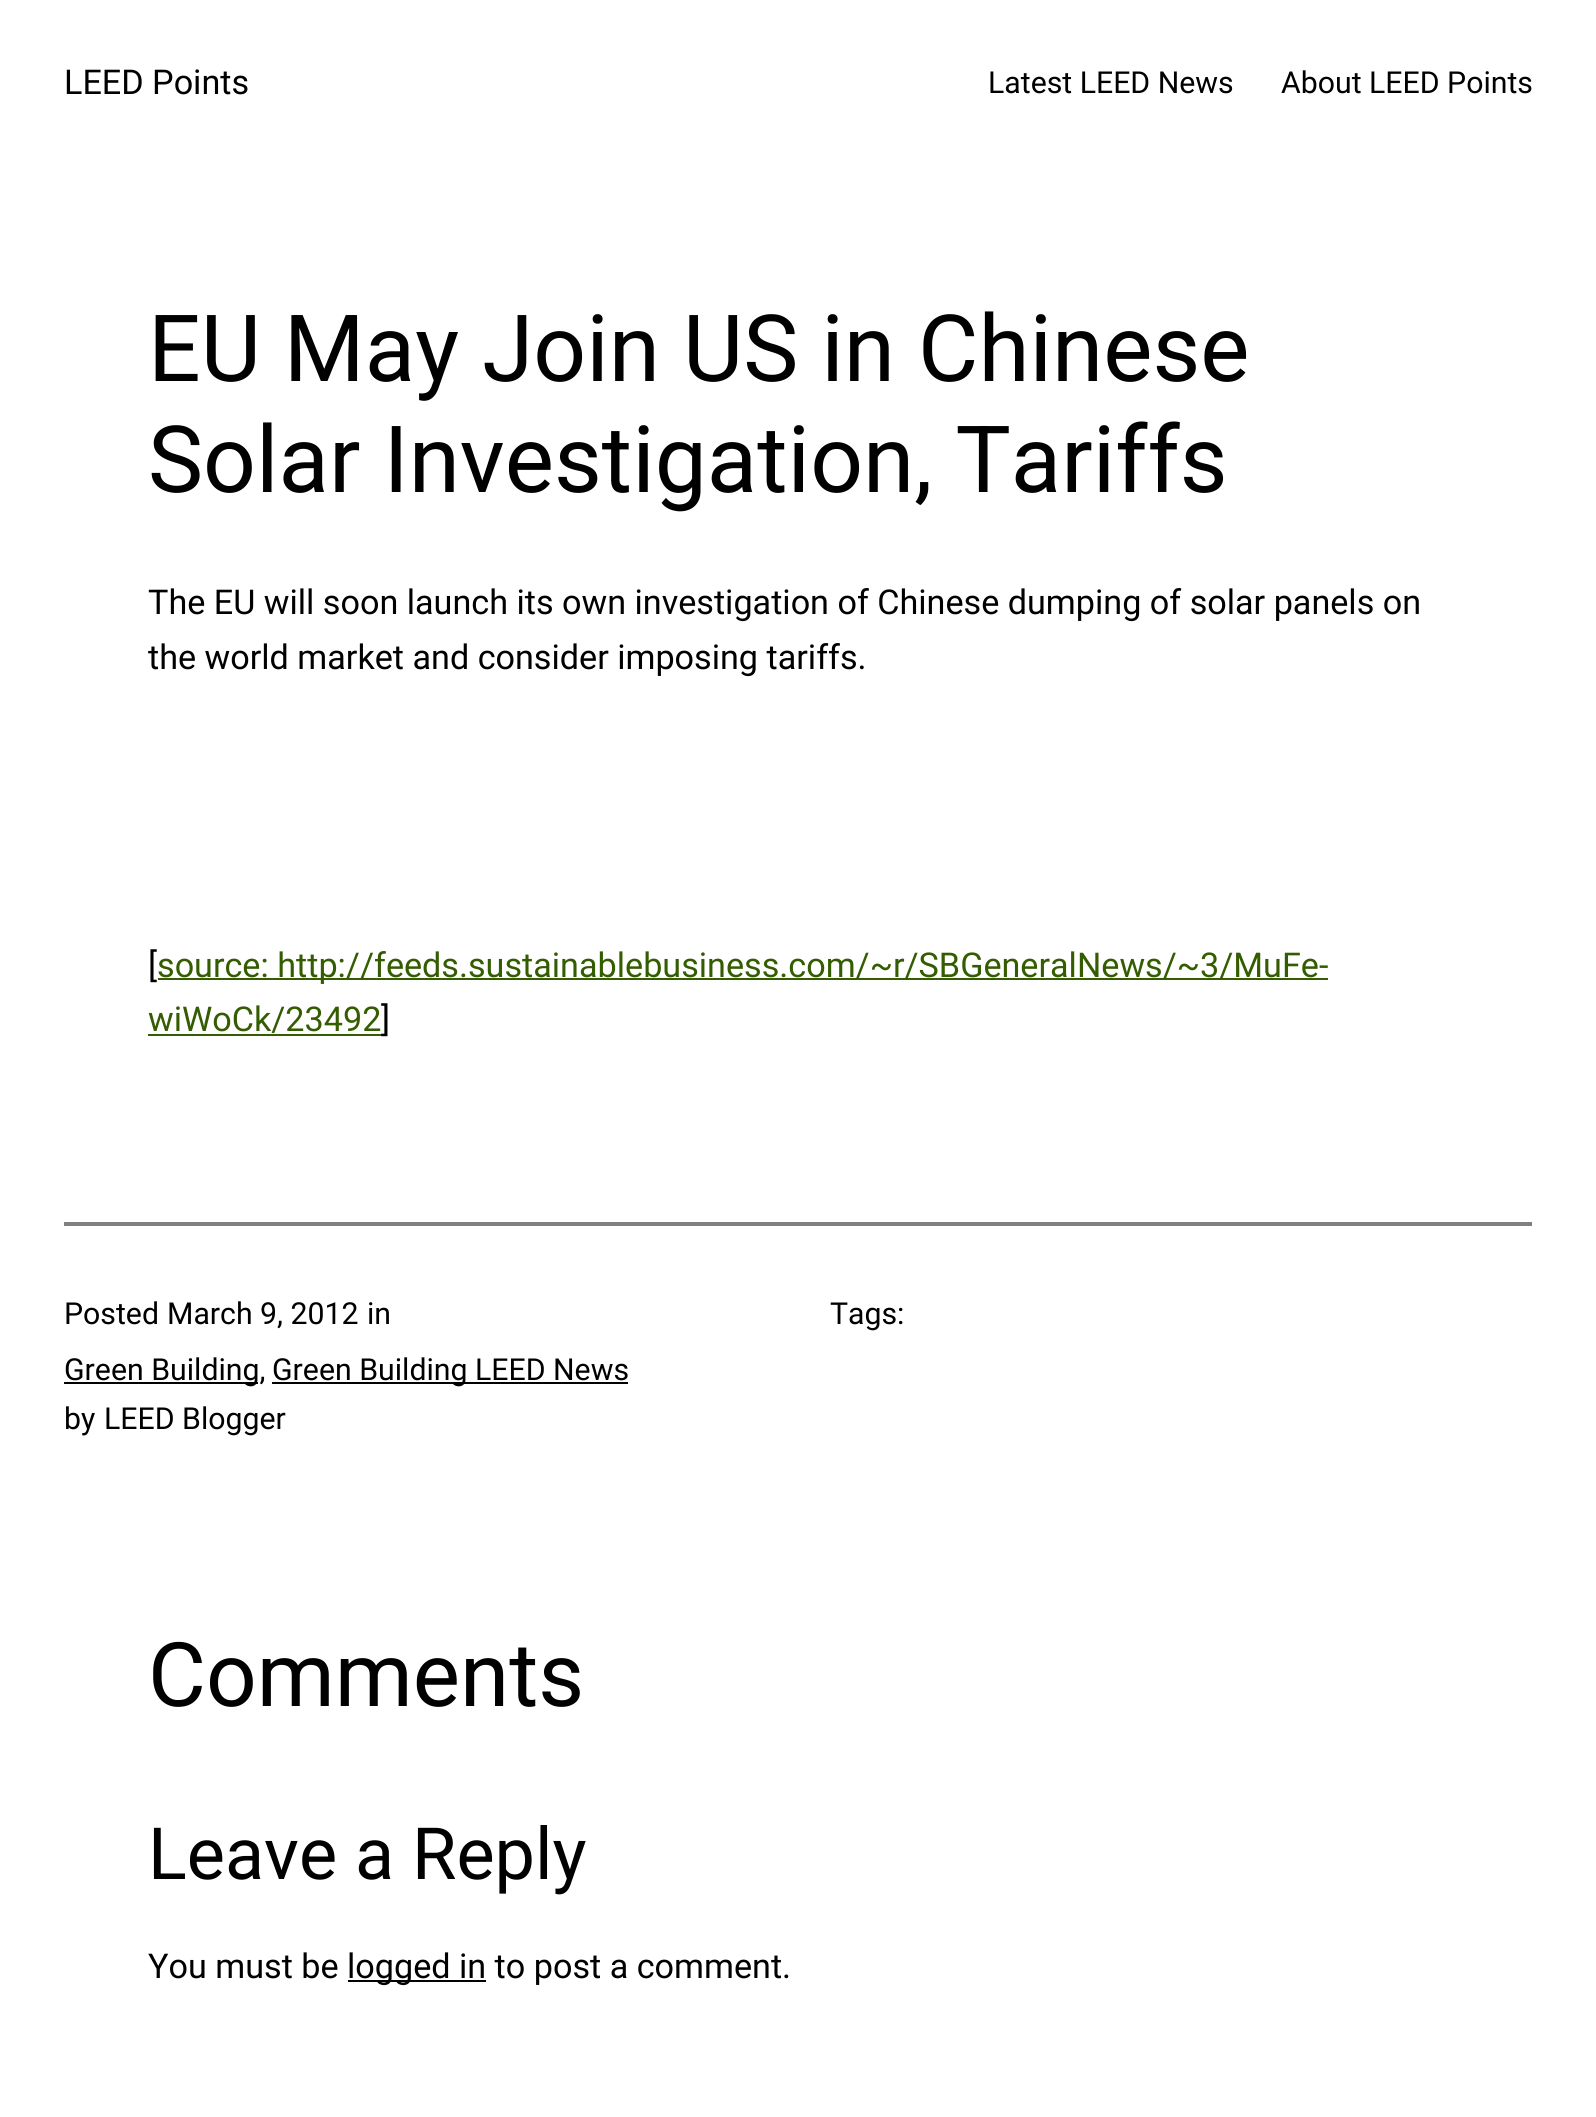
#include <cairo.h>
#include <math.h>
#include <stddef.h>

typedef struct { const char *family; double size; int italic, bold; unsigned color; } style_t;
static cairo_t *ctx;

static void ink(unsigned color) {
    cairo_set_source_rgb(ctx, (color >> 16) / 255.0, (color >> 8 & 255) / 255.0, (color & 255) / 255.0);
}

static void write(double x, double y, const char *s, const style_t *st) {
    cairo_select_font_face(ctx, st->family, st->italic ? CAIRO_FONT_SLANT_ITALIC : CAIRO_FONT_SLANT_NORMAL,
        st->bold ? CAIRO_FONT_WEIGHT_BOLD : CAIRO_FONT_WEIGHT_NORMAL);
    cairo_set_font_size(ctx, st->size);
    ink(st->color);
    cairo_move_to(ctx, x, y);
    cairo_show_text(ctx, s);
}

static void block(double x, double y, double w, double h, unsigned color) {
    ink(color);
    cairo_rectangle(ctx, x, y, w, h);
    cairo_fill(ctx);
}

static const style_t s1 = {"Roboto", 34.15, 0, 0, 0x000000};
static const style_t s2 = {"Roboto", 30.25, 0, 0, 0x000000};
static const style_t s3 = {"Roboto", 92.75, 0, 0, 0x000000};
static const style_t s4 = {"Roboto", 34.15, 0, 0, 0x345c00};
static const style_t s5 = {"Roboto", 89, 0, 0, 0x000000};
static const style_t s6 = {"Roboto", 72, 0, 0, 0x000000};

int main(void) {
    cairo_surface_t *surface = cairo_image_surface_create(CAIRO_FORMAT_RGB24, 1596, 2117);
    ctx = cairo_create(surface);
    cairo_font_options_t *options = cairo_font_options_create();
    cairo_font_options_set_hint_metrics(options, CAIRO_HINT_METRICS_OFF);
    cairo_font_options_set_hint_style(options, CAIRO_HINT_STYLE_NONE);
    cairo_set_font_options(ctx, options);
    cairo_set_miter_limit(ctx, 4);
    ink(0xffffff);
    cairo_paint(ctx);
    write(64, 94, "LEED Points", &s1);
    write(988, 93, "Latest LEED News", &s2);
    write(1281, 93, "About LEED Points", &s2);
    write(148, 381, "EU May Join US in Chinese", &s3);
    write(148, 492, "Solar Investigation, Tariffs", &s3);
    write(148, 614, "The EU will soon launch its own investigation of Chinese dumping of solar panels on", &s1);
    write(148, 669, "the world market and consider imposing tariffs.", &s1);
    write(148, 977, "[", &s1);
    block(158, 978, 1170, 2, 0x345c00);
    write(157, 977, "source: http://feeds.sustainablebusiness.com/~r/SBGeneralNews/~3/MuFe-", &s4);
    write(148, 1031, "wiWoCk/23492", &s4);
    block(148, 1034, 234, 2, 0x345c00);
    write(381, 1031, "]", &s1);
    block(64, 1222, 1468, 4, 0x808080);
    write(64, 1324, "Posted", &s2);
    write(167, 1324, "March 9, 2012", &s2);
    write(367, 1324, "in", &s2);
    block(64, 1382, 194, 2, 0x000000);
    write(64, 1380, "Green Building,", &s2);
    block(272, 1382, 356, 2, 0x000000);
    write(272, 1380, "Green Building LEED News", &s2);
    write(64, 1429, "by", &s2);
    write(104, 1429, "LEED Blogger", &s2);
    write(830, 1324, "Tags:", &s2);
    write(148, 1706, "Comments", &s5);
    write(148, 1879, "Leave a Reply", &s6);
    write(148, 1978, "You must be", &s1);
    block(348, 1980, 138, 2, 0x000000);
    write(347, 1978, "logged in to post a comment.", &s1);
    cairo_surface_write_to_png(surface, "screenshot.png");
    cairo_font_options_destroy(options);
    cairo_destroy(ctx);
    cairo_surface_destroy(surface);
    return 0;
}
